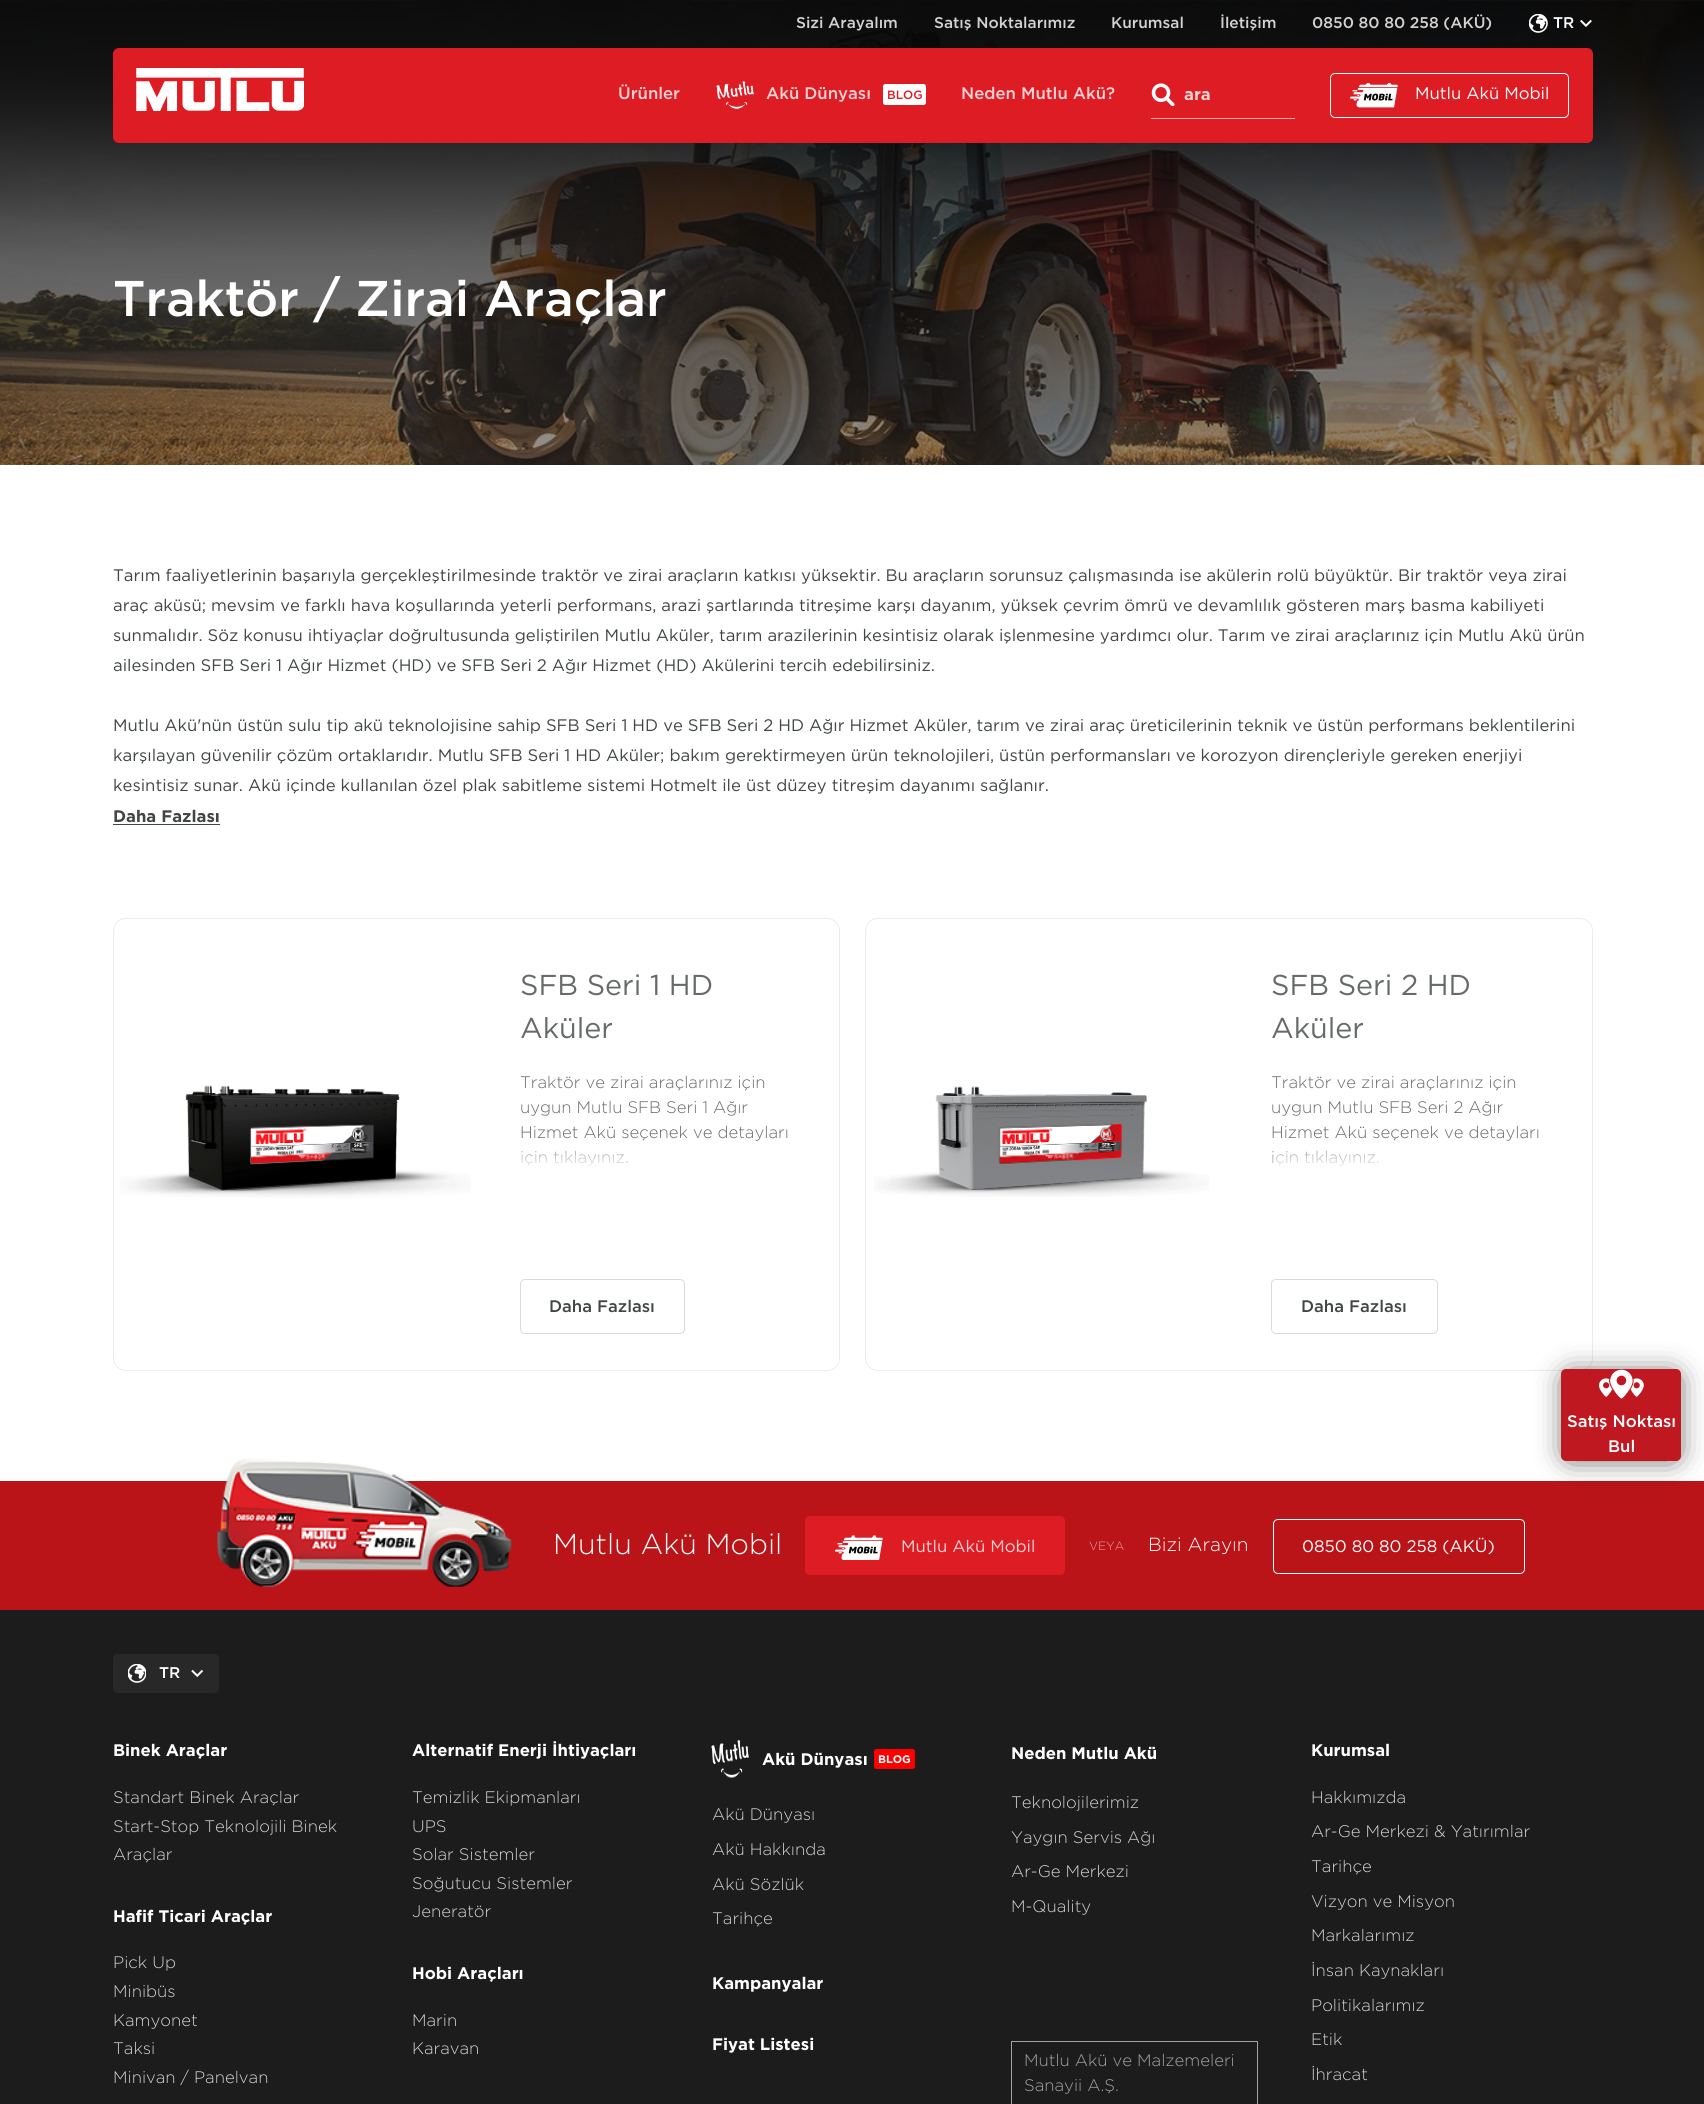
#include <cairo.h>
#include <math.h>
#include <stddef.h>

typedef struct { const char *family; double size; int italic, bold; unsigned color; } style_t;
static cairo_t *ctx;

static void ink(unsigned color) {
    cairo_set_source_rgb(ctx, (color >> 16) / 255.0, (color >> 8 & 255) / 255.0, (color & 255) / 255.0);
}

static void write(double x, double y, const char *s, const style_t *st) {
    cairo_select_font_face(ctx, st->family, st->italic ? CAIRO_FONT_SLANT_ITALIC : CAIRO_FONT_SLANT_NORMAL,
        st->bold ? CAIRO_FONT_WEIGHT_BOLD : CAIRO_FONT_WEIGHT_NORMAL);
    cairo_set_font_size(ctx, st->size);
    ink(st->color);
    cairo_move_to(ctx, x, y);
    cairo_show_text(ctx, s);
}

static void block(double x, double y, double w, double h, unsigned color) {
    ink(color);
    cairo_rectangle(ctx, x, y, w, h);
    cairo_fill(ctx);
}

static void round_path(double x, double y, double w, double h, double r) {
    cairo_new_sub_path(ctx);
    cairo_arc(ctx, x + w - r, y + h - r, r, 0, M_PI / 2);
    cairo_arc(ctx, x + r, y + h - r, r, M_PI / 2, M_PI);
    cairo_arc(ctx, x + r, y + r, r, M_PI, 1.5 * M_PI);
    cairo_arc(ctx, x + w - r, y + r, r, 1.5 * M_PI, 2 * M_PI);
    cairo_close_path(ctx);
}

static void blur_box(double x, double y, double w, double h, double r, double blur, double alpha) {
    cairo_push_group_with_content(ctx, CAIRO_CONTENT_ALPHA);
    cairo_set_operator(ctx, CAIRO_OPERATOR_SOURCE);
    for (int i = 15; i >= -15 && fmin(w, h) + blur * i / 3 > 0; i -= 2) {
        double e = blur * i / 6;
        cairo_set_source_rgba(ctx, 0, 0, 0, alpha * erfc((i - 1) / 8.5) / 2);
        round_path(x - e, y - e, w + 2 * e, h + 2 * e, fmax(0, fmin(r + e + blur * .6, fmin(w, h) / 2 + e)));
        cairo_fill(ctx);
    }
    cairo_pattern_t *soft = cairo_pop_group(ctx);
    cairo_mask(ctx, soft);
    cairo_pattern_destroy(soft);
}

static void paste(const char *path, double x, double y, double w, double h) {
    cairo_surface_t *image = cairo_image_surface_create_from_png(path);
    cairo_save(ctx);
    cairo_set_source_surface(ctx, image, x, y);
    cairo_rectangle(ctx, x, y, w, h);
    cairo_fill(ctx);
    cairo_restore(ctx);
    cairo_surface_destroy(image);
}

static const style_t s1 = {"Gotham Medium", 15.5, 0, 0, 0xd2d2d2};
static const style_t s2 = {"Gotham Medium", 15.5, 0, 0, 0xffffff};
static const style_t s3 = {"Gotham Medium", 16.7, 0, 0, 0xf8d2d3};
static const style_t s4 = {"Gotham Medium", 12, 0, 0, 0xde1c24};
static const style_t s5 = {"Gotham", 16.7, 0, 1, 0xf8d2d3};
static const style_t s6 = {"Gotham", 16.7, 0, 0, 0xffffff};
static const style_t s7 = {"Gotham Medium", 50.1, 0, 0, 0xffffff};
static const style_t s8 = {"Gotham", 16.7, 0, 0, 0x414546};
static const style_t s9 = {"Gotham", 16.7, 0, 1, 0x414546};
static const style_t s10 = {"Gotham", 28.75, 0, 0, 0x676a6b};
static const style_t s11 = {"Gotham Light", 16.7, 0, 0, 0x676a6b};
static const style_t s12 = {"Gotham Medium", 16.7, 0, 0, 0x414546};
static const style_t s13 = {"Gotham Medium", 16.7, 0, 0, 0xffffff};
static const style_t s14 = {"Gotham Light", 28.75, 0, 0, 0xffffff};
static const style_t s15 = {"Gotham", 16.7, 0, 0, 0xf8d2d3};
static const style_t s16 = {"Gotham Light", 12, 0, 0, 0xe3a1a3};
static const style_t s17 = {"Gotham Light", 19, 0, 0, 0xffffff};
static const style_t s18 = {"Gotham", 16.7, 0, 1, 0xffffff};
static const style_t s19 = {"Gotham Light", 16.7, 0, 0, 0xd2d2d2};
static const style_t s20 = {"Gotham", 11, 0, 1, 0xffffff};
static const style_t s21 = {"Gotham Light", 16.7, 0, 0, 0xa4a4a4};

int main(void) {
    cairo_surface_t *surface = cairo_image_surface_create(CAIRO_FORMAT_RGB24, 1704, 2104);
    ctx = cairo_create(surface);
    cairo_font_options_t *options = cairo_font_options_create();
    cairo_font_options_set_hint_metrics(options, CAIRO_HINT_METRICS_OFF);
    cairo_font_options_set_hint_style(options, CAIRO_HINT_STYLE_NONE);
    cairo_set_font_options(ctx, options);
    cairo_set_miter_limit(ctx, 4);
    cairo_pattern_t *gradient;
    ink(0xffffff);
    cairo_paint(ctx);
    paste("pic7.png", 0, 0, 1704, 465);
    write(796, 28, "Sizi Arayalım", &s1);
    write(934, 28, "Satış Noktalarımız", &s1);
    write(1111, 28, "Kurumsal", &s1);
    write(1220, 28, "İletişim", &s1);
    write(1312, 28, "0850 80 80 258 (AKÜ)", &s1);
    paste("pic1.png", 1529, 14, 19, 19);
    write(1553, 28, "TR", &s2);
    paste("pic2.png", 1580, 19, 12, 8);
    ink(0xde1c24);
    round_path(113, 48, 1480, 95, 6);
    cairo_fill(ctx);
    paste("pic3.png", 136, 68, 168, 43);
    write(618, 99, "Ürünler", &s3);
    paste("pic4.png", 716, 81, 38, 28);
    write(766, 99, "Akü Dünyası", &s3);
    ink(0xffffff);
    round_path(883, 84, 43, 21, 2.5);
    cairo_fill(ctx);
    write(887, 99, "BLOG", &s4);
    write(961, 99, "Neden Mutlu Akü?", &s3);
    paste("pic5.png", 1151, 83, 24, 23);
    block(1151, 118, 144, 1, 0xf2a4a7);
    write(1184, 100, "ara", &s5);
    round_path(1330.5, 73.5, 238, 44, 4.5);
    ink(0xffffff);
    cairo_set_line_width(ctx, 1);
    cairo_stroke(ctx);
    paste("pic6.png", 1350, 83, 48, 25);
    write(1415, 99, "Mutlu Akü Mobil", &s6);
    write(113, 316, "Traktör / Zirai Araçlar", &s7);
    write(113, 581, "Tarım faaliyetlerinin başarıyla gerçekleştirilmesinde traktör ve zirai araçların katkısı yüksektir. Bu araçların sorunsuz çalışmasında ise akülerin rolü büyüktür. Bir traktör veya zirai", &s8);
    write(113, 611, "araç aküsü; mevsim ve farklı hava koşullarında yeterli performans, arazi şartlarında titreşime karşı dayanım, yüksek çevrim ömrü ve devamlılık gösteren marş basma kabiliyeti", &s8);
    write(113, 641, "sunmalıdır. Söz konusu ihtiyaçlar doğrultusunda geliştirilen Mutlu Aküler, tarım arazilerinin kesintisiz olarak işlenmesine yardımcı olur. Tarım ve zirai araçlarınız için Mutlu Akü ürün", &s8);
    write(113, 671, "ailesinden SFB Seri 1 Ağır Hizmet (HD) ve SFB Seri 2 Ağır Hizmet (HD) Akülerini tercih edebilirsiniz.", &s8);
    write(113, 731, "Mutlu Akü'nün üstün sulu tip akü teknolojisine sahip SFB Seri 1 HD ve SFB Seri 2 HD Ağır Hizmet Aküler, tarım ve zirai araç üreticilerinin teknik ve üstün performans beklentilerini", &s8);
    write(113, 761, "karşılayan güvenilir çözüm ortaklarıdır. Mutlu SFB Seri 1 HD Aküler; bakım gerektirmeyen ürün teknolojileri, üstün performansları ve korozyon dirençleriyle gereken enerjiyi", &s8);
    write(113, 791, "kesintisiz sunar. Akü içinde kullanılan özel plak sabitleme sistemi Hotmelt ile üst düzey titreşim dayanımı sağlanır.", &s8);
    write(113, 822, "Daha Fazlası", &s9);
    block(113, 824, 107, 1, 0x414546);
    round_path(113.5, 918.5, 726, 452, 12.5);
    ink(0xececed);
    cairo_stroke(ctx);
    paste("pic8.png", 120, 1085, 351, 113);
    write(520, 995, "SFB Seri 1 HD", &s10);
    write(520, 1038, "Aküler", &s10);
    write(520, 1088, "Traktör ve zirai araçlarınız için", &s11);
    write(520, 1113, "uygun Mutlu SFB Seri 1 Ağır", &s11);
    write(520, 1138, "Hizmet Akü seçenek ve detayları", &s11);
    write(520, 1163, "için tıklayınız.", &s11);
    gradient = cairo_pattern_create_linear(656, 1171, 656, 1140);
    cairo_pattern_add_color_stop_rgba(gradient, 0, 1, 1, 1, 1);
    cairo_pattern_add_color_stop_rgba(gradient, 1, 1, 1, 1, 0);
    cairo_set_source(ctx, gradient);
    cairo_pattern_destroy(gradient);
    cairo_rectangle(ctx, 521, 1150, 106, 16);
    cairo_fill(ctx);
    round_path(520.5, 1279.5, 164, 54, 4.5);
    ink(0xd9dada);
    cairo_stroke(ctx);
    write(549, 1312, "Daha Fazlası", &s12);
    round_path(865.5, 918.5, 727, 452, 12.5);
    ink(0xececed);
    cairo_stroke(ctx);
    paste("pic9.png", 874, 1086, 335, 111);
    write(1271, 995, "SFB Seri 2 HD", &s10);
    write(1271, 1038, "Aküler", &s10);
    write(1271, 1088, "Traktör ve zirai araçlarınız için", &s11);
    write(1271, 1113, "uygun Mutlu SFB Seri 2 Ağır", &s11);
    write(1271, 1138, "Hizmet Akü seçenek ve detayları", &s11);
    write(1271, 1163, "için tıklayınız.", &s11);
    gradient = cairo_pattern_create_linear(1408, 1171, 1408, 1140);
    cairo_pattern_add_color_stop_rgba(gradient, 0, 1, 1, 1, 1);
    cairo_pattern_add_color_stop_rgba(gradient, 1, 1, 1, 1, 0);
    cairo_set_source(ctx, gradient);
    cairo_pattern_destroy(gradient);
    cairo_rectangle(ctx, 1273, 1150, 106, 16);
    cairo_fill(ctx);
    round_path(1271.5, 1279.5, 166, 54, 4.5);
    ink(0xd9dada);
    cairo_stroke(ctx);
    write(1301, 1312, "Daha Fazlası", &s12);
    block(0, 1481, 1704, 129, 0xba1418);
    ink(0x171717);
    blur_box(1570, 1379, 103, 75, 0, 15.5, 1);
    ink(0xc01820);
    round_path(1561, 1369, 120, 92, 5);
    cairo_fill(ctx);
    paste("pic10.png", 1598, 1369, 46, 30);
    write(1567, 1427, "Satış Noktası", &s13);
    write(1608, 1452, "Bul", &s13);
    block(0, 1610, 1704, 494, 0x1c1c1c);
    paste("pic11.png", 217, 1458, 295, 129);
    write(553, 1554, "Mutlu Akü Mobil", &s14);
    ink(0xde1c24);
    round_path(805, 1516, 260, 59, 5);
    cairo_fill(ctx);
    paste("pic12.png", 835, 1535, 48, 25);
    write(901, 1552, "Mutlu Akü Mobil", &s15);
    write(1089, 1550, "VEYA", &s16);
    write(1148, 1551, "Bizi Arayın", &s17);
    round_path(1273.5, 1519.5, 251, 54, 4.5);
    cairo_stroke(ctx);
    write(1302, 1552, "0850 80 80 258 (AKÜ)", &s6);
    ink(0x282828);
    round_path(113, 1654, 106, 39, 5);
    cairo_fill(ctx);
    paste("pic13.png", 128, 1664, 18, 19);
    write(159, 1678, "TR", &s2);
    paste("pic14.png", 191, 1669, 13, 9);
    write(113, 1756, "Binek Araçlar", &s18);
    write(113, 1803, "Standart Binek Araçlar", &s19);
    write(113, 1832, "Start-Stop Teknolojili Binek", &s19);
    write(113, 1860, "Araçlar", &s19);
    write(113, 1922, "Hafif Ticari Araçlar", &s18);
    write(113, 1968, "Pick Up", &s19);
    write(113, 1997, "Minibüs", &s19);
    write(113, 2026, "Kamyonet", &s19);
    write(113, 2054, "Taksi", &s19);
    write(113, 2083, "Minivan / Panelvan", &s19);
    write(412, 1756, "Alternatif Enerji İhtiyaçları", &s18);
    write(412, 1803, "Temizlik Ekipmanları", &s19);
    write(412, 1832, "UPS", &s19);
    write(412, 1860, "Solar Sistemler", &s19);
    write(412, 1889, "Soğutucu Sistemler", &s19);
    write(412, 1917, "Jeneratör", &s19);
    write(412, 1979, "Hobi Araçları", &s18);
    write(412, 2026, "Marin", &s19);
    write(412, 2054, "Karavan", &s19);
    paste("pic15.png", 711, 1740, 38, 38);
    write(762, 1765, "Akü Dünyası", &s18);
    ink(0xff0000);
    round_path(874, 1749, 41, 20, 2.5);
    cairo_fill(ctx);
    write(878, 1763, "BLOG", &s20);
    write(712, 1820, "Akü Dünyası", &s19);
    write(712, 1855, "Akü Hakkında", &s19);
    write(712, 1890, "Akü Sözlük", &s19);
    write(712, 1924, "Tarihçe", &s19);
    write(712, 1989, "Kampanyalar", &s18);
    write(712, 2050, "Fiyat Listesi", &s18);
    write(1011, 1759, "Neden Mutlu Akü", &s18);
    write(1011, 1808, "Teknolojilerimiz", &s19);
    write(1011, 1843, "Yaygın Servis Ağı", &s19);
    write(1011, 1877, "Ar-Ge Merkezi", &s19);
    write(1011, 1912, "M-Quality", &s19);
    cairo_rectangle(ctx, 1011.5, 2041.5, 246, 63);
    ink(0xa4a4a4);
    cairo_stroke(ctx);
    write(1024, 2066, "Mutlu Akü ve Malzemeleri", &s21);
    write(1024, 2091, "Sanayii A.Ş.", &s21);
    write(1311, 1756, "Kurumsal", &s18);
    write(1311, 1803, "Hakkımızda", &s19);
    write(1311, 1837, "Ar-Ge Merkezi & Yatırımlar", &s19);
    write(1311, 1872, "Tarihçe", &s19);
    write(1311, 1907, "Vizyon ve Misyon", &s19);
    write(1311, 1941, "Markalarımız", &s19);
    write(1311, 1976, "İnsan Kaynakları", &s19);
    write(1311, 2011, "Politikalarımız", &s19);
    write(1311, 2045, "Etik", &s19);
    write(1311, 2080, "İhracat", &s19);
    cairo_surface_write_to_png(surface, "screenshot.png");
    cairo_font_options_destroy(options);
    cairo_destroy(ctx);
    cairo_surface_destroy(surface);
    return 0;
}
